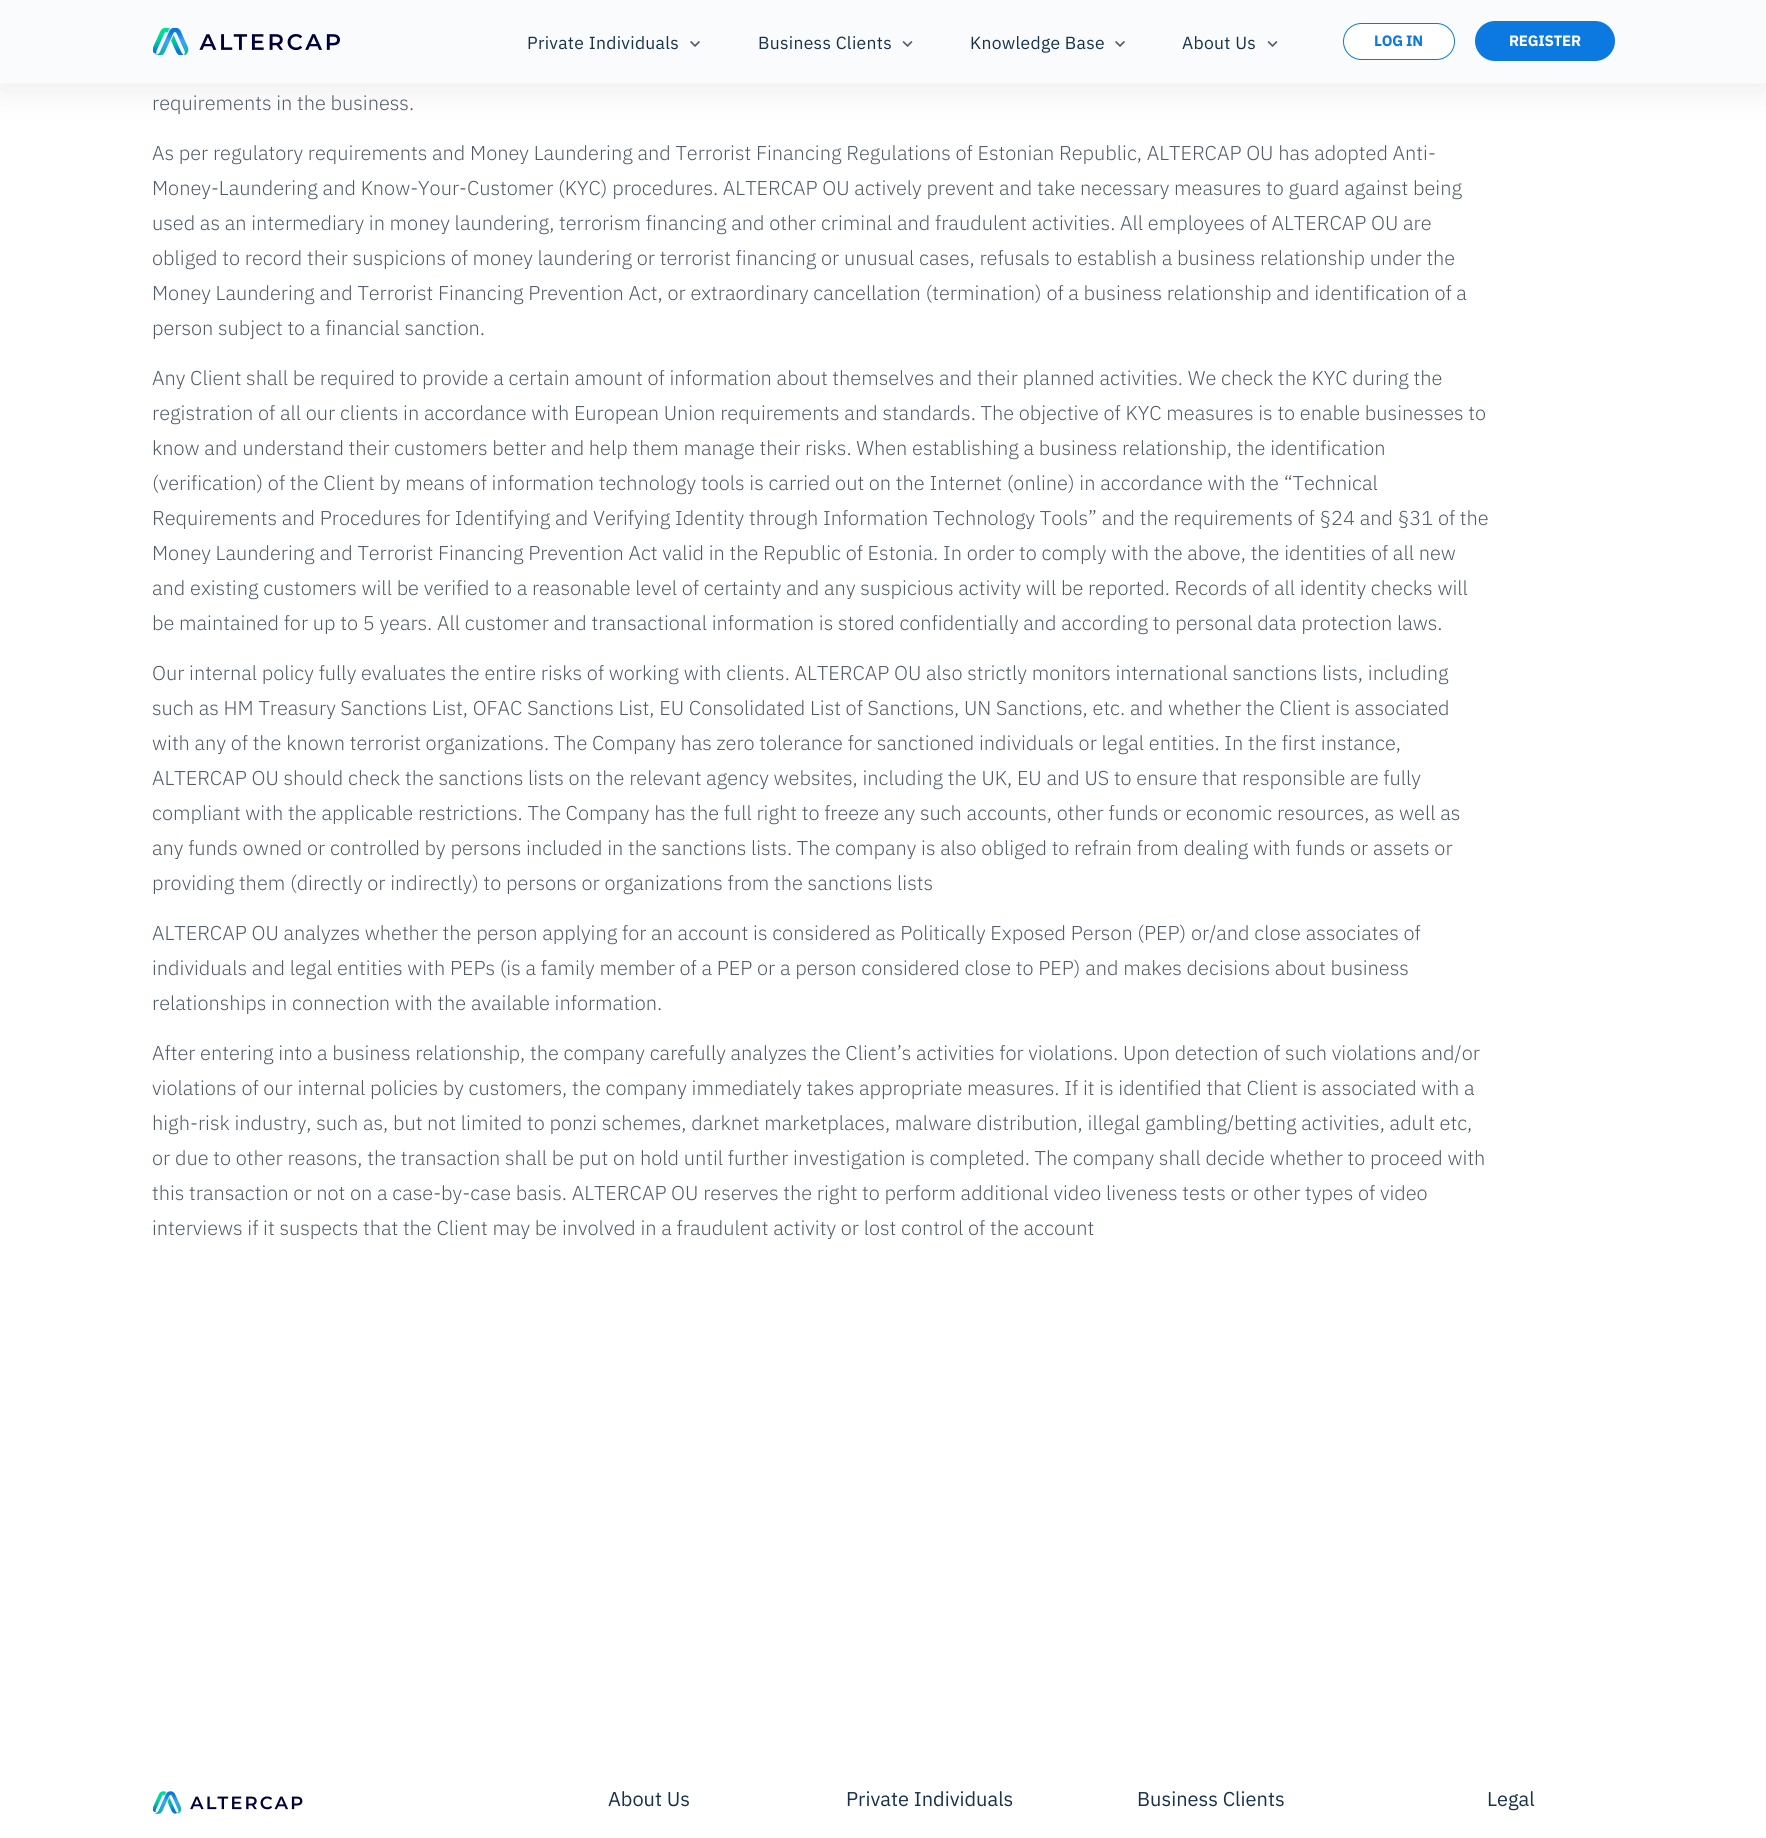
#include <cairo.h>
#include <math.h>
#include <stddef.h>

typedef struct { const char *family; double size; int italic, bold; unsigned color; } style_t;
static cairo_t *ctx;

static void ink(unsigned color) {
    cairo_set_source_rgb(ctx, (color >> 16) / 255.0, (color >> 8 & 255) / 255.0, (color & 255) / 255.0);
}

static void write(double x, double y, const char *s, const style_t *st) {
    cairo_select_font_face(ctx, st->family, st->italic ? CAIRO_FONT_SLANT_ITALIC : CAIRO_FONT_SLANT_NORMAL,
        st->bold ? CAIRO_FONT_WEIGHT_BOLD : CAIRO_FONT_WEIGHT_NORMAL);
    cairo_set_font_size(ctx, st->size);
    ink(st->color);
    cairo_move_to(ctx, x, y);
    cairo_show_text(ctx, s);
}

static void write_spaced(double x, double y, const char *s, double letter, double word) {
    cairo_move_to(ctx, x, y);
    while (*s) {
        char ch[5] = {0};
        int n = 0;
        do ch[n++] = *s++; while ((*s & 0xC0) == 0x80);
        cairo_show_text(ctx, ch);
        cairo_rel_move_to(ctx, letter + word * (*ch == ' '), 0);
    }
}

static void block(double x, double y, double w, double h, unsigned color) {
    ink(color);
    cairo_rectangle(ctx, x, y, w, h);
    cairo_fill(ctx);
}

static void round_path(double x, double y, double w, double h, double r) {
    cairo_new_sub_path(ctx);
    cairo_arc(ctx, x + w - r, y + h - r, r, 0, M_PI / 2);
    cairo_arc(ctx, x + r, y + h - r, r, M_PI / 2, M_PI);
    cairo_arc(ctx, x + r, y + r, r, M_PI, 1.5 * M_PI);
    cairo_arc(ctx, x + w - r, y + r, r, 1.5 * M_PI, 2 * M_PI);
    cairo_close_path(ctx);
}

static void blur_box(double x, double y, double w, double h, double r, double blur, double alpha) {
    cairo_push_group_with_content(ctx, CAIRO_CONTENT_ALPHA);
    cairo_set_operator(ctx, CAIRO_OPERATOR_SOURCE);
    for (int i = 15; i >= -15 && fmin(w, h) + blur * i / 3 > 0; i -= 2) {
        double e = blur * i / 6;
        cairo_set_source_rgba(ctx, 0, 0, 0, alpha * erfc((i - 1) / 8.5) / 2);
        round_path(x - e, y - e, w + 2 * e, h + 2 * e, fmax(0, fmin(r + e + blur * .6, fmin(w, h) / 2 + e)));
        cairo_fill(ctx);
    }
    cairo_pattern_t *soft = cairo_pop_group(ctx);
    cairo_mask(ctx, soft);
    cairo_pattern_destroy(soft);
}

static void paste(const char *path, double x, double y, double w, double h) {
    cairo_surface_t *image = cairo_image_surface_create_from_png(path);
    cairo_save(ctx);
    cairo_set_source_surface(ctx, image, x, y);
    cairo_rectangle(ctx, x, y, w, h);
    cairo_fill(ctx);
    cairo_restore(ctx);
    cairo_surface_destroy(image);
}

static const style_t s1 = {"IBM Plex Sans Light", 20, 0, 0, 0x505b67};
static const style_t s2 = {"IBM Plex Sans", 20, 0, 0, 0x19324c};

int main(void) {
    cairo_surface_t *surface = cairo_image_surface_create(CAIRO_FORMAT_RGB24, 1766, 1838);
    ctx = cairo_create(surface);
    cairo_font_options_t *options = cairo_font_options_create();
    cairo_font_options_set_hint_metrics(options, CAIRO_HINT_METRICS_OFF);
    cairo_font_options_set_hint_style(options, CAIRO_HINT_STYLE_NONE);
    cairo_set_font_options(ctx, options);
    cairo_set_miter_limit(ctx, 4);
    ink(0xffffff);
    cairo_paint(ctx);
    ink(0x000000);
    blur_box(0, 0, 1766, 84, 0, 20, 0.1);
    block(0, 0, 1766, 83, 0xfafbfd);
    block(0, 83, 1766, 1, 0xf3f6fa);
    paste("pic1.png", 153, 28, 187, 27);
    cairo_select_font_face(ctx, "IBM Plex Sans", CAIRO_FONT_SLANT_NORMAL, CAIRO_FONT_WEIGHT_NORMAL);
    cairo_set_font_size(ctx, 17.5);
    ink(0x19324c);
    write_spaced(527, 49, "Private Individuals", 0.3, 0);
    paste("pic2.png", 690, 41, 10, 6);
    write_spaced(758, 49, "Business Clients", 0.3, 0);
    paste("pic3.png", 902, 41, 11, 6);
    write_spaced(970, 49, "Knowledge Base", 0.3, 0);
    paste("pic2.png", 1115, 41, 10, 6);
    write_spaced(1182, 49, "About Us", 0.3, 0);
    paste("pic3.png", 1267, 41, 11, 6);
    ink(0xffffff);
    round_path(1343.5, 23.5, 111, 36, 18);
    cairo_fill_preserve(ctx);
    ink(0x0b79df);
    cairo_set_line_width(ctx, 1);
    cairo_stroke(ctx);
    cairo_select_font_face(ctx, "IBM Plex Sans", CAIRO_FONT_SLANT_NORMAL, CAIRO_FONT_WEIGHT_BOLD);
    cairo_set_font_size(ctx, 15);
    write_spaced(1374, 46, "LOG IN", -0.25, 0);
    round_path(1476.5, 22.5, 137, 37, 18.5);
    cairo_fill_preserve(ctx);
    cairo_set_line_width(ctx, 3);
    cairo_stroke(ctx);
    ink(0xffffff);
    write_spaced(1509, 46, "REGISTER", -0.25, 0);
    write(152, 110, "requirements in the business.", &s1);
    write(152, 160, "As per regulatory requirements and Money Laundering and Terrorist Financing Regulations of Estonian Republic, ALTERCAP OU has adopted Anti-", &s1);
    write(152, 195, "Money-Laundering and Know-Your-Customer (KYC) procedures. ALTERCAP OU actively prevent and take necessary measures to guard against being", &s1);
    write(152, 230, "used as an intermediary in money laundering, terrorism financing and other criminal and fraudulent activities. All employees of ALTERCAP OU are", &s1);
    write(152, 265, "obliged to record their suspicions of money laundering or terrorist financing or unusual cases, refusals to establish a business relationship under the", &s1);
    write(152, 300, "Money Laundering and Terrorist Financing Prevention Act, or extraordinary cancellation (termination) of a business relationship and identification of a", &s1);
    write(152, 335, "person subject to a financial sanction.", &s1);
    write(152, 385, "Any Client shall be required to provide a certain amount of information about themselves and their planned activities. We check the KYC during the", &s1);
    write(152, 420, "registration of all our clients in accordance with European Union requirements and standards. The objective of KYC measures is to enable businesses to", &s1);
    write(152, 455, "know and understand their customers better and help them manage their risks. When establishing a business relationship, the identification", &s1);
    write(152, 490, "(verification) of the Client by means of information technology tools is carried out on the Internet (online) in accordance with the “Technical", &s1);
    write(152, 525, "Requirements and Procedures for Identifying and Verifying Identity through Information Technology Tools” and the requirements of §24 and §31 of the", &s1);
    write(152, 560, "Money Laundering and Terrorist Financing Prevention Act valid in the Republic of Estonia. In order to comply with the above, the identities of all new", &s1);
    write(152, 595, "and existing customers will be verified to a reasonable level of certainty and any suspicious activity will be reported. Records of all identity checks will", &s1);
    write(152, 630, "be maintained for up to 5 years. All customer and transactional information is stored confidentially and according to personal data protection laws.", &s1);
    write(152, 680, "Our internal policy fully evaluates the entire risks of working with clients. ALTERCAP OU also strictly monitors international sanctions lists, including", &s1);
    write(152, 715, "such as HM Treasury Sanctions List, OFAC Sanctions List, EU Consolidated List of Sanctions, UN Sanctions, etc. and whether the Client is associated", &s1);
    write(152, 750, "with any of the known terrorist organizations. The Company has zero tolerance for sanctioned individuals or legal entities. In the first instance,", &s1);
    write(152, 785, "ALTERCAP OU should check the sanctions lists on the relevant agency websites, including the UK, EU and US to ensure that responsible are fully", &s1);
    write(152, 820, "compliant with the applicable restrictions. The Company has the full right to freeze any such accounts, other funds or economic resources, as well as", &s1);
    write(152, 855, "any funds owned or controlled by persons included in the sanctions lists. The company is also obliged to refrain from dealing with funds or assets or", &s1);
    write(152, 890, "providing them (directly or indirectly) to persons or organizations from the sanctions lists", &s1);
    write(152, 940, "ALTERCAP OU analyzes whether the person applying for an account is considered as Politically Exposed Person (PEP) or/and close associates of", &s1);
    write(152, 975, "individuals and legal entities with PEPs (is a family member of a PEP or a person considered close to PEP) and makes decisions about business", &s1);
    write(152, 1010, "relationships in connection with the available information.", &s1);
    write(152, 1060, "After entering into a business relationship, the company carefully analyzes the Сlient’s activities for violations. Upon detection of such violations and/or", &s1);
    write(152, 1095, "violations of our internal policies by customers, the company immediately takes appropriate measures. If it is identified that Client is associated with a", &s1);
    write(152, 1130, "high-risk industry, such as, but not limited to ponzi schemes, darknet marketplaces, malware distribution, illegal gambling/betting activities, adult etc,", &s1);
    write(152, 1165, "or due to other reasons, the transaction shall be put on hold until further investigation is completed. The company shall decide whether to proceed with", &s1);
    write(152, 1200, "this transaction or not on a case-by-case basis. ALTERCAP OU reserves the right to perform additional video liveness tests or other types of video", &s1);
    write(152, 1235, "interviews if it suspects that the Client may be involved in a fraudulent activity or lost control of the account", &s1);
    paste("pic4.png", 153, 1791, 150, 23);
    write(608, 1806, "About Us", &s2);
    write(846, 1806, "Private Individuals", &s2);
    write(1137, 1806, "Business Clients", &s2);
    write(1487, 1806, "Legal", &s2);
    cairo_surface_write_to_png(surface, "screenshot.png");
    cairo_font_options_destroy(options);
    cairo_destroy(ctx);
    cairo_surface_destroy(surface);
    return 0;
}
